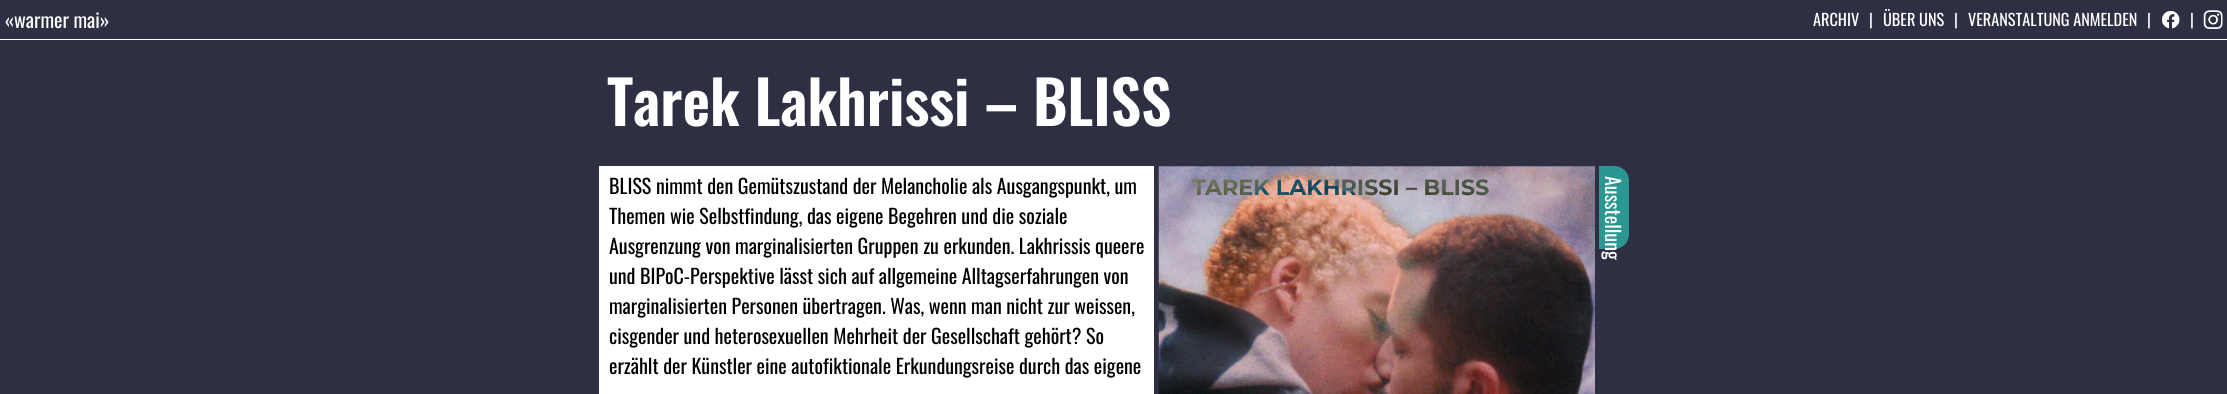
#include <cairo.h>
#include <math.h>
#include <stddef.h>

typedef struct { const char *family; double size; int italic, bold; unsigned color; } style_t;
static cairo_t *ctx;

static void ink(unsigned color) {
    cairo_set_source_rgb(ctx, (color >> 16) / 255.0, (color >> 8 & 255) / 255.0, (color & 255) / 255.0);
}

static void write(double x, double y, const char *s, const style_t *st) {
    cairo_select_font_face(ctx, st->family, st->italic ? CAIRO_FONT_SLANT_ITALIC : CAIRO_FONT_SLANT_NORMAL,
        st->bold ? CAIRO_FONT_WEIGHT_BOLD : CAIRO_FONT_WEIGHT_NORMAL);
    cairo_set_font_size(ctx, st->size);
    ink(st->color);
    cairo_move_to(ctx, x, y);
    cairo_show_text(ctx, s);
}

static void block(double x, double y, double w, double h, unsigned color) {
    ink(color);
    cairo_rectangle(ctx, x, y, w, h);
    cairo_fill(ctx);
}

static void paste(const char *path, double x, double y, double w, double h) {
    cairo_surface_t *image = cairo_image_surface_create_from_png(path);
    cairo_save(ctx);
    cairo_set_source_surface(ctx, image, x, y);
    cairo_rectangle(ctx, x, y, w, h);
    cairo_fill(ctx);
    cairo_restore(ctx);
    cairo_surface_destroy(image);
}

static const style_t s1 = {"Oswald", 20, 0, 0, 0xffffff};
static const style_t s2 = {"Oswald", 16.25, 0, 0, 0xffffff};
static const style_t s3 = {"Oswald SemiBold", 60, 0, 0, 0xffffff};
static const style_t s4 = {"Oswald", 20, 0, 0, 0x000000};

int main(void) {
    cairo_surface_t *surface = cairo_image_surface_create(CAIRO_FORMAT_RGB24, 2227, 394);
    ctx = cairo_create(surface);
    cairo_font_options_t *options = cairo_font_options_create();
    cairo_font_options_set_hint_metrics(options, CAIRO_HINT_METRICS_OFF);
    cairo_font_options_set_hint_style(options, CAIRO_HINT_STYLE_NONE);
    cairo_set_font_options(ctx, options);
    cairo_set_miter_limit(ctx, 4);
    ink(0x2e2f43);
    cairo_paint(ctx);
    block(0, 39, 2227, 1, 0xffffff);
    write(5, 28, "«warmer mai»", &s1);
    write(1813, 26, "ARCHIV", &s2);
    write(1869, 26, "|", &s2);
    write(1883, 26, "ÜBER UNS", &s2);
    write(1954, 26, "|", &s2);
    write(1968, 26, "VERANSTALTUNG ANMELDEN", &s2);
    write(2147, 26, "|", &s2);
    paste("pic1.png", 2162, 11, 18, 18);
    write(2190, 26, "|", &s2);
    paste("pic2.png", 2203, 10, 20, 19);
    write(607, 126, "Tarek Lakhrissi – BLISS", &s3);
    block(599, 166, 555, 228, 0xffffff);
    write(609, 194, "BLISS nimmt den Gemütszustand der Melancholie als Ausgangspunkt, um", &s4);
    write(609, 224, "Themen wie Selbstfindung, das eigene Begehren und die soziale", &s4);
    write(609, 254, "Ausgrenzung von marginalisierten Gruppen zu erkunden. Lakhrissis queere", &s4);
    write(609, 284, "und BIPoC-Perspektive lässt sich auf allgemeine Alltagserfahrungen von", &s4);
    write(609, 314, "marginalisierten Personen übertragen. Was, wenn man nicht zur weissen,", &s4);
    write(609, 344, "cisgender und heterosexuellen Mehrheit der Gesellschaft gehört? So", &s4);
    write(609, 374, "erzählt der Künstler eine autofiktionale Erkundungsreise durch das eigene", &s4);
    paste("pic3.png", 1158, 166, 437, 228);
    ink(0x2c9691);
    cairo_new_path(ctx);
    cairo_move_to(ctx, 1599, 166);
    cairo_line_to(ctx, 1614, 166);
    cairo_curve_to(ctx, 1622.5, 166, 1629, 172.5, 1629, 181);
    cairo_line_to(ctx, 1629, 234);
    cairo_curve_to(ctx, 1629, 242.5, 1622.5, 249, 1614, 249);
    cairo_line_to(ctx, 1599, 249);
    cairo_close_path(ctx);
    cairo_fill(ctx);
    cairo_save(ctx);
    cairo_translate(ctx, 1605, 176);
    cairo_rotate(ctx, 90 * M_PI / 180);
    write(0, 0, "Ausstellung", &s1);
    cairo_restore(ctx);
    cairo_surface_write_to_png(surface, "screenshot.png");
    cairo_font_options_destroy(options);
    cairo_destroy(ctx);
    cairo_surface_destroy(surface);
    return 0;
}
